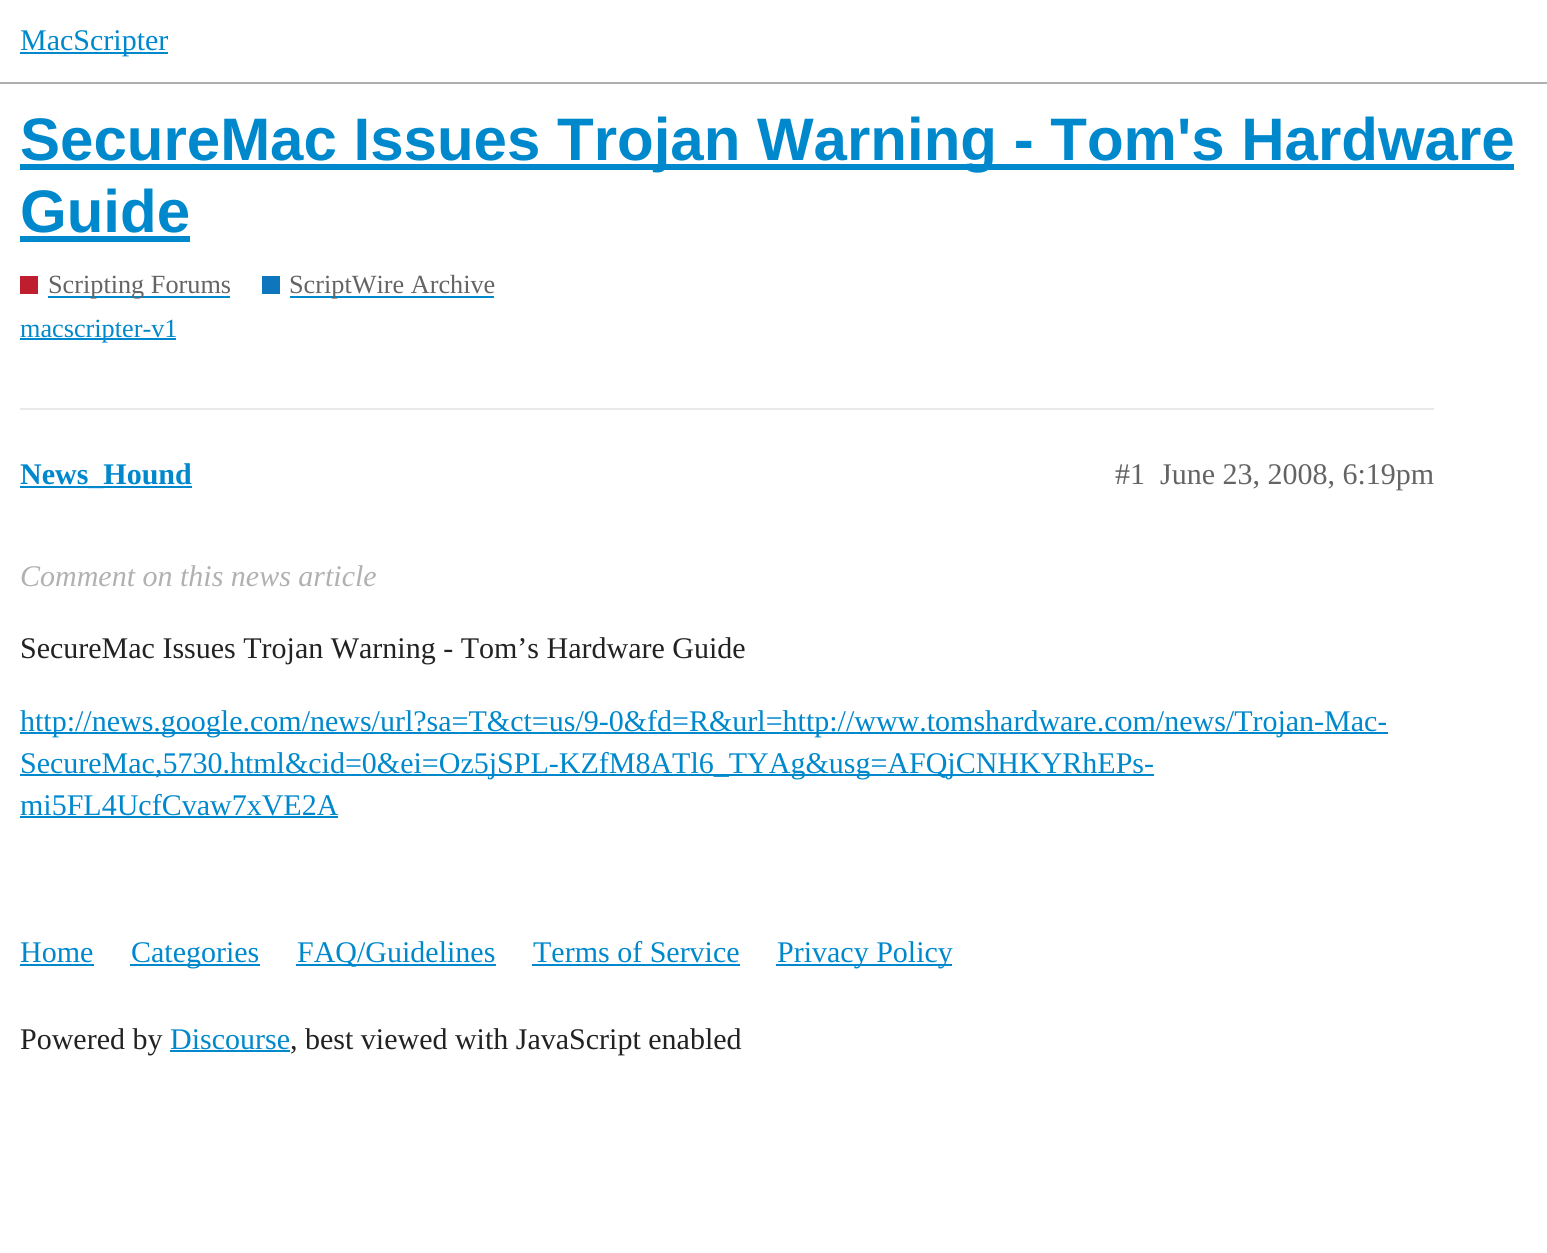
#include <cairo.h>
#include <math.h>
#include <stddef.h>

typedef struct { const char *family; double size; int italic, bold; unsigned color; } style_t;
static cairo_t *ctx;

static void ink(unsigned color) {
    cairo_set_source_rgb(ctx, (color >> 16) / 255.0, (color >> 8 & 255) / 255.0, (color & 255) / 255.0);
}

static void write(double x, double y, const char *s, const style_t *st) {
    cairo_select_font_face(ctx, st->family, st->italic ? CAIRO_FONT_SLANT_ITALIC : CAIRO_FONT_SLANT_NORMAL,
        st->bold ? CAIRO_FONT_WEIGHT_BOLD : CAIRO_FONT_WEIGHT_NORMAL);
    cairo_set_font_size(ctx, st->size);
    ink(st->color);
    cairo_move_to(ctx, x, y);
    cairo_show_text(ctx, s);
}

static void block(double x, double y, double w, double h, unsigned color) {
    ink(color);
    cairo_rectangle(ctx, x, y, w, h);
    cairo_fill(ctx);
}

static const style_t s1 = {"Liberation Serif", 30, 0, 0, 0x0088cc};
static const style_t s2 = {"Liberation Sans", 60, 0, 1, 0x0088cc};
static const style_t s3 = {"Liberation Serif", 26.25, 0, 0, 0x646464};
static const style_t s4 = {"Liberation Serif", 26.25, 0, 0, 0x0088cc};
static const style_t s5 = {"Liberation Serif", 30, 0, 1, 0x0088cc};
static const style_t s6 = {"Liberation Serif", 30, 0, 0, 0x646464};
static const style_t s7 = {"Liberation Serif", 30, 1, 0, 0xb1b1b1};
static const style_t s8 = {"Liberation Serif", 30, 0, 0, 0x222222};

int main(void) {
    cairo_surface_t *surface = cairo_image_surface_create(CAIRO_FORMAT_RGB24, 1547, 1253);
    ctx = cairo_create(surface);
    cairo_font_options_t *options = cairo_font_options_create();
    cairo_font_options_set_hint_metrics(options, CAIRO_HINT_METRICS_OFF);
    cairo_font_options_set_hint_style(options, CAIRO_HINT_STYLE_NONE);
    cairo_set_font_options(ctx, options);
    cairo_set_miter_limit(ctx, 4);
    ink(0xffffff);
    cairo_paint(ctx);
    block(0, 82, 1547, 2, 0xafafaf);
    block(20, 52, 148, 2, 0x0088cc);
    write(20, 50, "MacScripter", &s1);
    block(20, 164, 1494, 6, 0x0088cc);
    write(20, 160, "SecureMac Issues Trojan Warning - Tom's Hardware", &s2);
    write(20, 232, "Guide", &s2);
    block(20, 236, 170, 6, 0x0088cc);
    block(20, 276, 18, 18, 0xbf1e2e);
    block(48, 296, 182, 2, 0x0088cc);
    write(48, 293, "Scripting Forums", &s3);
    block(262, 276, 18, 18, 0x0e76bd);
    block(290, 296, 204, 2, 0x0088cc);
    write(289, 293, "ScriptWire Archive", &s3);
    block(20, 338, 156, 2, 0x0088cc);
    write(20, 337, "macscripter-v1", &s4);
    block(20, 408, 1414, 2, 0xe9e9e9);
    block(20, 486, 172, 2, 0x0088cc);
    write(20, 484, "News_Hound", &s5);
    write(1115, 484, "#1", &s6);
    write(1160, 484, "June 23, 2008, 6:19pm", &s6);
    write(20, 586, "Comment on this news article", &s7);
    write(20, 658, "SecureMac Issues Trojan Warning - Tom’s Hardware Guide", &s8);
    block(20, 732, 1368, 2, 0x0088cc);
    write(20, 731, "http://news.google.com/news/url?sa=T&ct=us/9-0&fd=R&url=http://www.tomshardware.com/news/Trojan-Mac-", &s1);
    block(20, 774, 1134, 2, 0x0088cc);
    write(20, 773, "SecureMac,5730.html&cid=0&ei=Oz5jSPL-KZfM8ATl6_TYAg&usg=AFQjCNHKYRhEPs-", &s1);
    write(20, 815, "mi5FL4UcfCvaw7xVE2A", &s1);
    block(20, 816, 318, 2, 0x0088cc);
    write(20, 962, "Home", &s1);
    block(20, 964, 74, 2, 0x0088cc);
    block(130, 964, 130, 2, 0x0088cc);
    write(131, 962, "Categories", &s1);
    block(296, 964, 200, 2, 0x0088cc);
    write(297, 962, "FAQ/Guidelines", &s1);
    write(533, 962, "Terms of Service", &s1);
    block(532, 964, 208, 2, 0x0088cc);
    block(776, 964, 176, 2, 0x0088cc);
    write(777, 962, "Privacy Policy", &s1);
    write(20, 1049, "Powered by", &s8);
    write(170, 1049, "Discourse", &s1);
    block(170, 1050, 120, 2, 0x0088cc);
    write(290, 1049, ", best viewed with JavaScript enabled", &s8);
    cairo_surface_write_to_png(surface, "screenshot.png");
    cairo_font_options_destroy(options);
    cairo_destroy(ctx);
    cairo_surface_destroy(surface);
    return 0;
}
